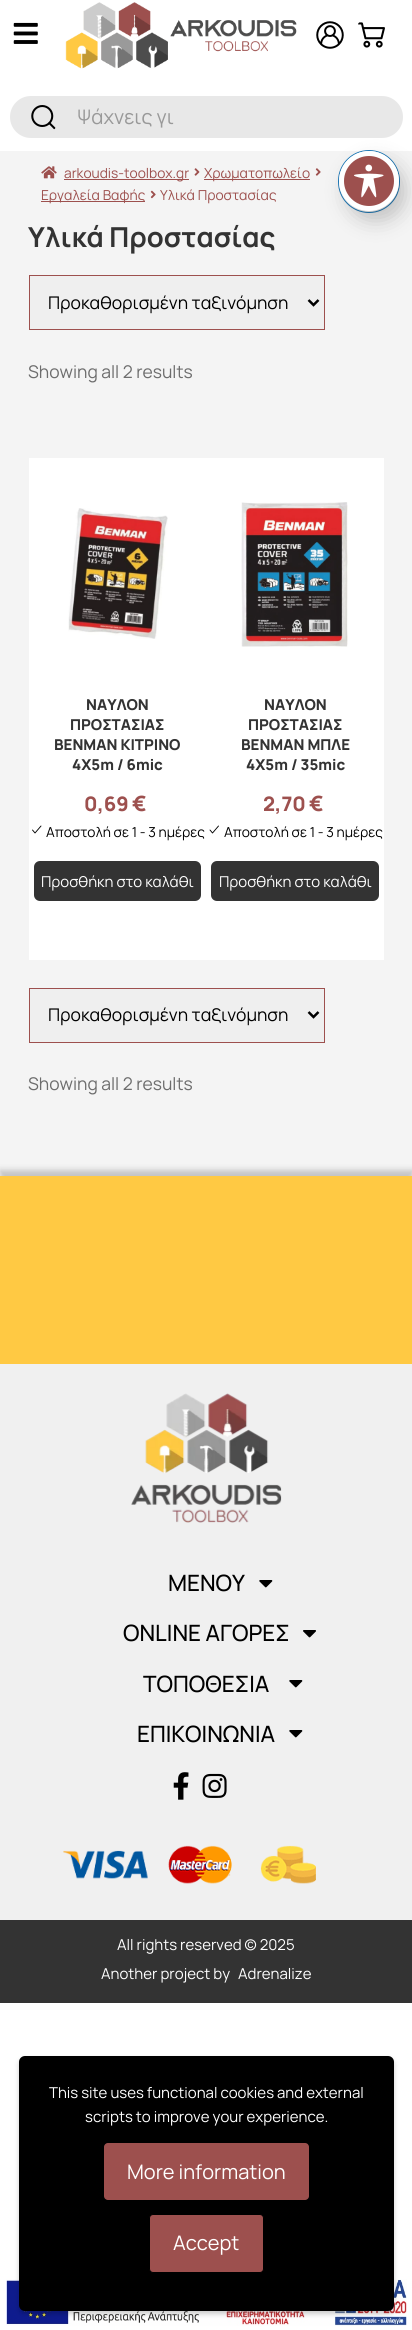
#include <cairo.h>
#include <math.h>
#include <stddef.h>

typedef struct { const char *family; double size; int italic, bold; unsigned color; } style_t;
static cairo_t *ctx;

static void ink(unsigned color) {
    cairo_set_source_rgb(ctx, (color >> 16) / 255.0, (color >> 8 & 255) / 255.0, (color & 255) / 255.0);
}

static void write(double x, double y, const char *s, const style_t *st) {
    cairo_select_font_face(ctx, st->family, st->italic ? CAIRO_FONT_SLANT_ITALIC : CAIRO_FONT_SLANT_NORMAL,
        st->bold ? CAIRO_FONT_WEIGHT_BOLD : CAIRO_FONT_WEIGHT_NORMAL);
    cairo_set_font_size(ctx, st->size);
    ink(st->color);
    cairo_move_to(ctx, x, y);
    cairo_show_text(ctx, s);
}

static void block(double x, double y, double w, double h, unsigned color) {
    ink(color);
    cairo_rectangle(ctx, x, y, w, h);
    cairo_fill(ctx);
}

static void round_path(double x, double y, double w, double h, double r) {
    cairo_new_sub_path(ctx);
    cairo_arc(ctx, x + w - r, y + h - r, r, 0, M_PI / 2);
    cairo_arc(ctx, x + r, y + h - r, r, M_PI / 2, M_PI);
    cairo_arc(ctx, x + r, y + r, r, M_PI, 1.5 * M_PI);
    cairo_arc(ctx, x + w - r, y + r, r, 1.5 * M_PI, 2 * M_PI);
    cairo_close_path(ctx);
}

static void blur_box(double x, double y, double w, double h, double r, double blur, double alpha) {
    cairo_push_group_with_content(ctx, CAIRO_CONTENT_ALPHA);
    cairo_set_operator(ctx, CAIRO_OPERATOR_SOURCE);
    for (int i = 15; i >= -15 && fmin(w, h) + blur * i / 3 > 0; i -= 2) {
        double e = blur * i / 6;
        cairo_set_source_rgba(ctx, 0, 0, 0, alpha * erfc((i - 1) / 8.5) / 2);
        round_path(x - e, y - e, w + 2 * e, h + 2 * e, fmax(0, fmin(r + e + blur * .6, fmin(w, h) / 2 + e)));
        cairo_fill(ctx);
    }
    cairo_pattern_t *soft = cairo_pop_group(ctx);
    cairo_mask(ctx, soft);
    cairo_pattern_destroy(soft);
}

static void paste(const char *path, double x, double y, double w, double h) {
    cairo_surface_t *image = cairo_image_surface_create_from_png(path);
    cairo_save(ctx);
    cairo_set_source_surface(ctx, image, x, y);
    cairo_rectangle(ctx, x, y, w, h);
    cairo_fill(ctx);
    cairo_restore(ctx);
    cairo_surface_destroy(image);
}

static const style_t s1 = {"Manrope", 20, 0, 0, 0x999999};
static const style_t s2 = {"Manrope", 13.75, 0, 0, 0x9d504e};
static const style_t s3 = {"Manrope", 27.5, 0, 1, 0x333333};
static const style_t s4 = {"Manrope", 17.5, 0, 0, 0x000000};
static const style_t s5 = {"Manrope", 17.5, 0, 0, 0x6d6d6d};
static const style_t s6 = {"Manrope ExtraBold", 15, 0, 0, 0x333333};
static const style_t s7 = {"Manrope ExtraBold", 20, 0, 0, 0x9d504e};
static const style_t s8 = {"Manrope ExtraBold", 21, 0, 0, 0x9d504e};
static const style_t s9 = {"Manrope", 13.75, 0, 0, 0x000000};
static const style_t s10 = {"Manrope", 15, 0, 0, 0xffffff};
static const style_t s11 = {"Manrope Medium", 22.5, 0, 0, 0x000000};
static const style_t s12 = {"Manrope", 20, 0, 0, 0xffffff};

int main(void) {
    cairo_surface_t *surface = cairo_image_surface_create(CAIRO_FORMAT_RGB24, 412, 2330);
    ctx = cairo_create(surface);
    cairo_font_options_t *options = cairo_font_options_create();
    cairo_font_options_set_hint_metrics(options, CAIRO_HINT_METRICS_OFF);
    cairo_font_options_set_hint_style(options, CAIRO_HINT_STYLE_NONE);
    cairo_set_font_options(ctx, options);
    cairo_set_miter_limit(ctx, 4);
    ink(0xffffff);
    cairo_paint(ctx);
    paste("pic1.png", 13, 22, 25, 22);
    paste("pic2.png", 65, 2, 232, 67);
    paste("pic3.png", 316, 21, 28, 28);
    paste("pic4.png", 358, 22, 27, 26);
    ink(0xe8e8e8);
    round_path(10, 96, 393, 42, 21);
    cairo_fill(ctx);
    paste("pic5.png", 31, 105, 25, 25);
    write(77, 124, "Ψάχνεις γι", &s1);
    block(0, 151, 412, 1025, 0xf4f4f4);
    paste("pic6.png", 41, 166, 16, 13);
    block(64, 179, 125, 1, 0x9d504e);
    write(64, 178, "arkoudis-toolbox.gr", &s2);
    paste("pic7.png", 194, 168, 6, 8);
    block(204, 179, 106, 1, 0x9d504e);
    write(204, 178, "Χρωματοπωλείο", &s2);
    paste("pic8.png", 315, 168, 6, 8);
    block(41, 201, 104, 1, 0x9d504e);
    write(41, 200, "Εργαλεία Βαφής", &s2);
    paste("pic9.png", 150, 190, 6, 9);
    write(160, 200, "Υλικά Προστασίας", &s2);
    write(28, 247, "Υλικά Προστασίας", &s3);
    ink(0xefefef);
    cairo_rectangle(ctx, 29.5, 275.5, 295, 54);
    cairo_fill_preserve(ctx);
    ink(0x9d504e);
    cairo_set_line_width(ctx, 1);
    cairo_stroke(ctx);
    cairo_new_path(ctx);
    cairo_move_to(ctx, 308.5, 300);
    cairo_line_to(ctx, 313.5, 305);
    cairo_line_to(ctx, 318.5, 300);
    ink(0x000000);
    cairo_set_line_width(ctx, 2.5);
    cairo_stroke(ctx);
    write(48, 309, "Προκαθορισμένη ταξινόμηση", &s4);
    write(28, 378, "Showing all 2 results", &s5);
    block(29, 458, 355, 502, 0xffffff);
    paste("pic10.png", 68, 508, 100, 131);
    write(86, 710, "ΝΑΥΛΟΝ", &s6);
    write(70, 730, "ΠΡΟΣΤΑΣΙΑΣ", &s6);
    write(54, 750, "BENMAN ΚΙΤΡΙΝΟ", &s6);
    write(72, 770, "4Χ5m / 6mic", &s6);
    write(84, 811, "0,69", &s7);
    write(132, 811, "€", &s8);
    cairo_new_path(ctx);
    cairo_move_to(ctx, 41, 826);
    cairo_line_to(ctx, 35, 833);
    cairo_line_to(ctx, 32.5, 830);
    ink(0x000000);
    cairo_set_line_width(ctx, 0.9);
    cairo_set_line_cap(ctx, CAIRO_LINE_CAP_ROUND);
    cairo_set_line_join(ctx, CAIRO_LINE_JOIN_ROUND);
    cairo_stroke(ctx);
    write(46, 837, "Απoστολή σε 1 - 3 ημέρες", &s9);
    ink(0x333333);
    round_path(34, 861, 167, 40, 6);
    cairo_fill(ctx);
    write(41, 887, "Προσθήκη στο καλάθι", &s10);
    paste("pic11.png", 241, 502, 107, 145);
    write(264, 710, "ΝΑΥΛΟΝ", &s6);
    write(248, 730, "ΠΡΟΣΤΑΣΙΑΣ", &s6);
    write(241, 750, "BENMAN ΜΠΛΕ", &s6);
    write(246, 770, "4Χ5m / 35mic", &s6);
    write(263, 811, "2,70", &s7);
    write(309, 811, "€", &s8);
    cairo_new_path(ctx);
    cairo_move_to(ctx, 218.5, 826);
    cairo_line_to(ctx, 212.5, 833);
    cairo_line_to(ctx, 210, 830);
    ink(0x000000);
    cairo_stroke(ctx);
    write(224, 837, "Απoστολή σε 1 - 3 ημέρες", &s9);
    ink(0x333333);
    round_path(211, 861, 168, 40, 6);
    cairo_fill(ctx);
    write(219, 887, "Προσθήκη στο καλάθι", &s10);
    ink(0xefefef);
    cairo_rectangle(ctx, 29.5, 988.5, 295, 54);
    cairo_fill_preserve(ctx);
    ink(0x9d504e);
    cairo_set_line_width(ctx, 1);
    cairo_set_line_cap(ctx, CAIRO_LINE_CAP_BUTT);
    cairo_set_line_join(ctx, CAIRO_LINE_JOIN_MITER);
    cairo_stroke(ctx);
    cairo_new_path(ctx);
    cairo_move_to(ctx, 308.5, 1012);
    cairo_line_to(ctx, 313.5, 1017);
    cairo_line_to(ctx, 318.5, 1012);
    ink(0x000000);
    cairo_set_line_width(ctx, 2.5);
    cairo_stroke(ctx);
    write(48, 1021, "Προκαθορισμένη ταξινόμηση", &s4);
    write(28, 1090, "Showing all 2 results", &s5);
    ink(0x000000);
    blur_box(0, 1170, 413, 188, 0, 3, 0.2);
    block(0, 1176, 412, 188, 0xffc943);
    block(0, 1364, 412, 556, 0xf0f0f0);
    paste("pic12.png", 131, 1393, 151, 130);
    write(168, 1591, "ΜΕΝΟΥ", &s11);
    paste("pic13.png", 259, 1580, 14, 8);
    write(123, 1641, "ONLINE ΑΓΟΡΕΣ", &s11);
    paste("pic14.png", 303, 1630, 13, 8);
    write(143, 1692, "ΤΟΠΟΘΕΣΙΑ", &s11);
    paste("pic13.png", 289, 1680, 14, 8);
    write(137, 1742, "ΕΠΙΚΟΙΝΩΝΙΑ", &s11);
    paste("pic13.png", 289, 1730, 14, 8);
    paste("pic15.png", 173, 1772, 16, 28);
    paste("pic16.png", 202, 1773, 25, 25);
    paste("pic17.png", 63, 1845, 253, 39);
    block(0, 1920, 412, 83, 0x333333);
    write(117, 1950, "All rights reserved © 2025", &s10);
    write(101, 1979, "Another project by", &s10);
    write(238, 1979, "Adrenalize", &s10);
    round_path(338.5, 150.5, 61, 62, 30.5);
    ink(0x1e7ab9);
    cairo_set_line_width(ctx, 1);
    cairo_stroke(ctx);
    ink(0x000000);
    blur_box(346, 161, 60, 60, 30, 10, 0.2);
    ink(0x9d504e);
    cairo_arc(ctx, 369, 181, 27.5, 0, 2 * M_PI);
    cairo_fill_preserve(ctx);
    ink(0xffffff);
    cairo_set_line_width(ctx, 5);
    cairo_stroke(ctx);
    paste("pic18.png", 354, 164, 30, 34);
    paste("pic19.png", 6, 2279, 401, 47);
    ink(0x000000);
    blur_box(19, 2059, 375, 255, 6, 2.5, 0.2);
    ink(0x000000);
    round_path(19, 2056, 375, 255, 6);
    cairo_fill(ctx);
    write(49, 2098, "This site uses functional cookies and external", &s10);
    write(85, 2122, "scripts to improve your experience.", &s10);
    ink(0x9d504e);
    round_path(104, 2143, 205, 57, 4);
    cairo_fill(ctx);
    write(127, 2179, "More information", &s12);
    ink(0x9d504e);
    round_path(149.5, 2214.5, 114, 58, 3.5);
    cairo_fill_preserve(ctx);
    ink(0x000000);
    cairo_set_line_width(ctx, 1);
    cairo_stroke(ctx);
    write(173, 2250, "Accept", &s12);
    cairo_surface_write_to_png(surface, "screenshot.png");
    cairo_font_options_destroy(options);
    cairo_destroy(ctx);
    cairo_surface_destroy(surface);
    return 0;
}
